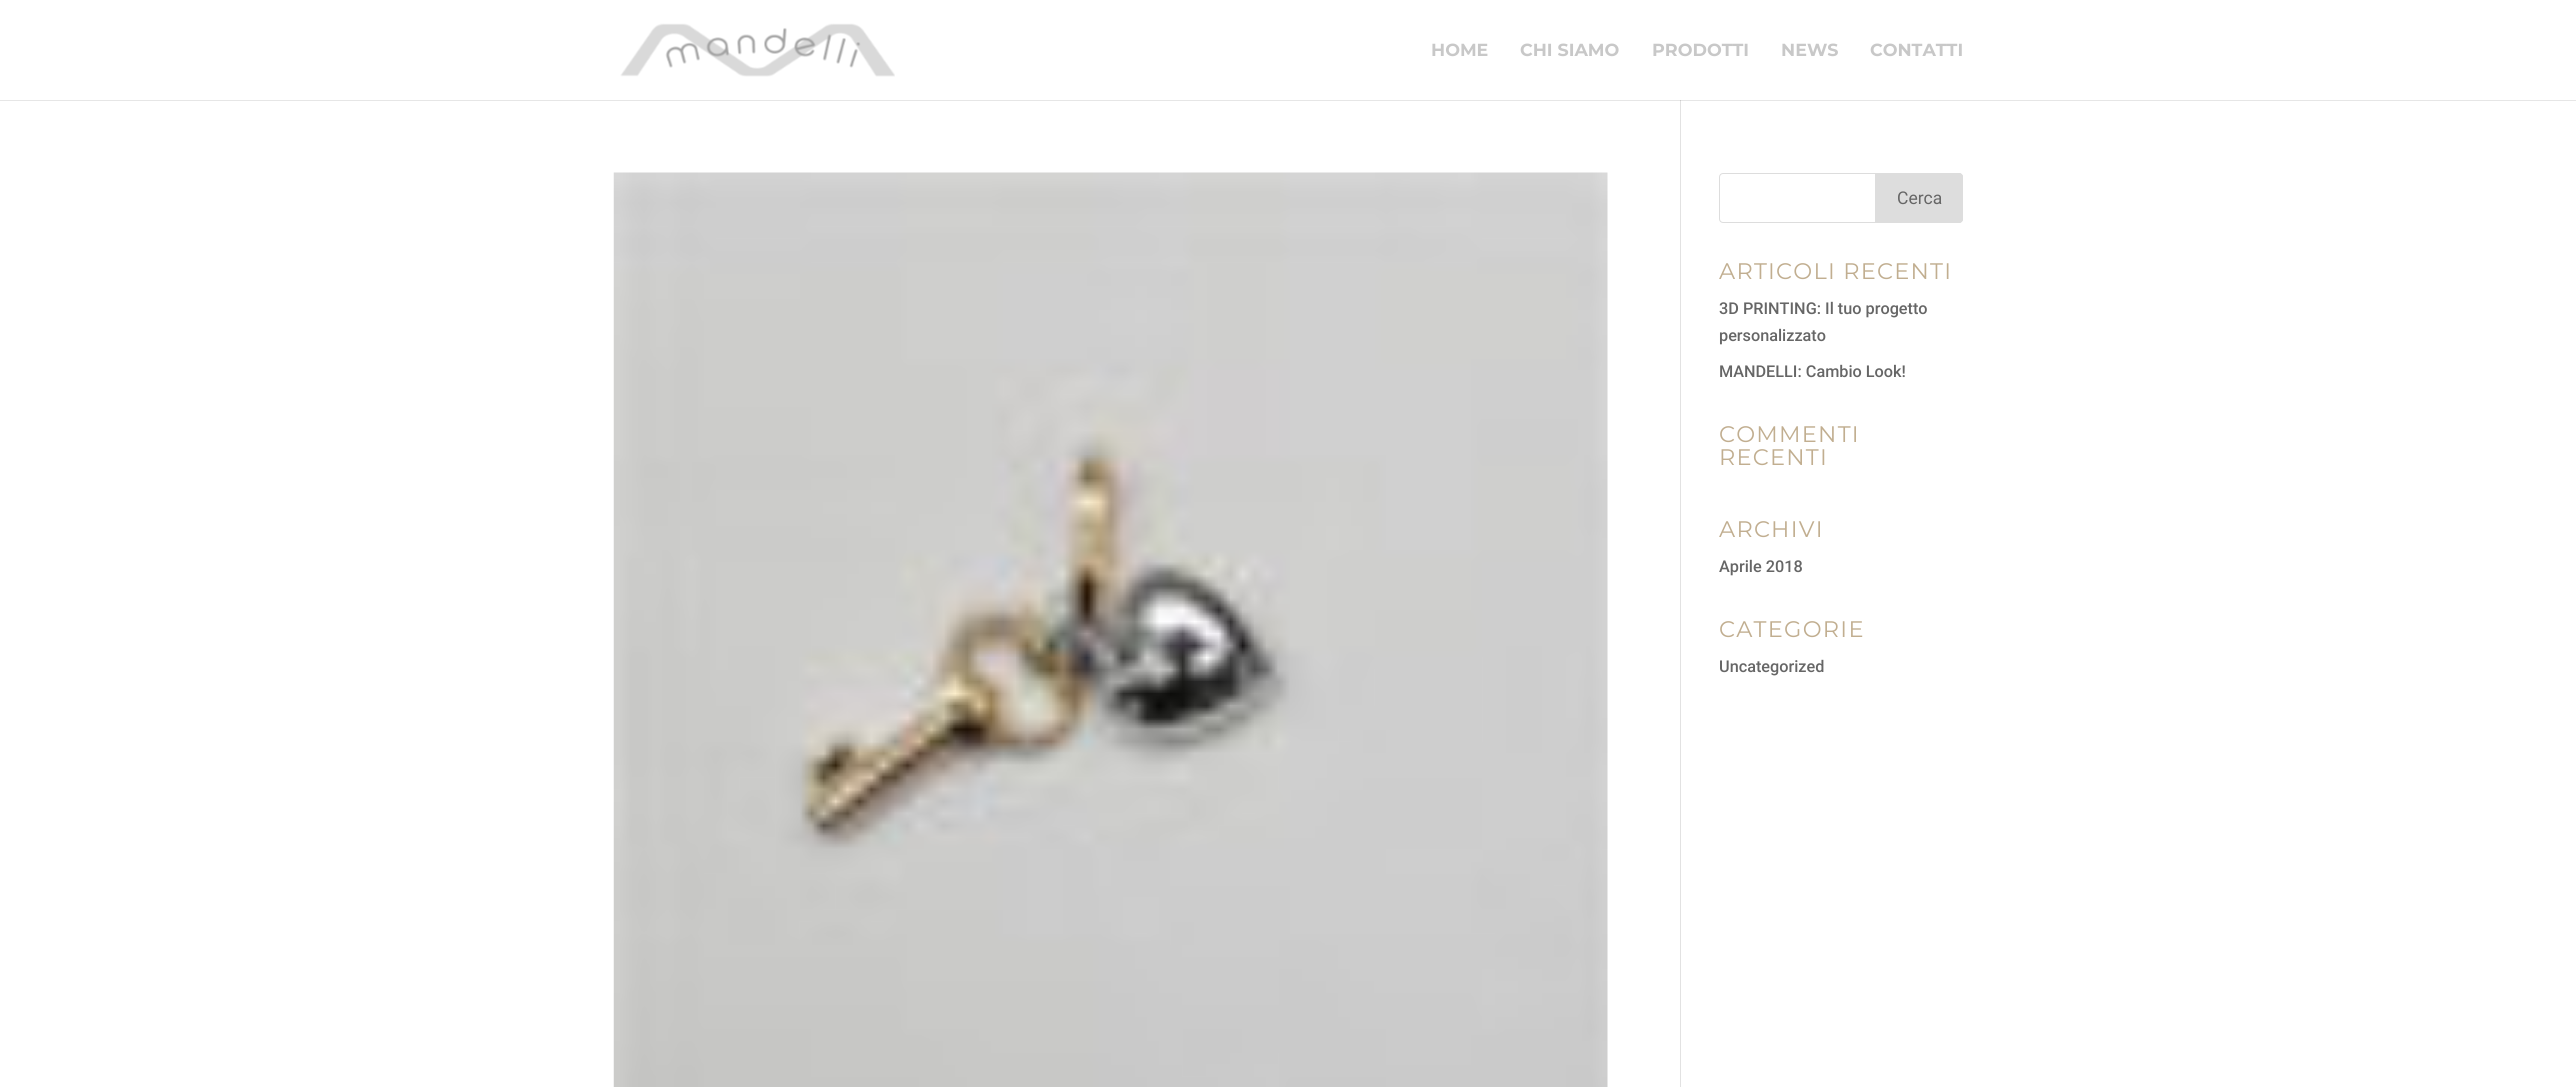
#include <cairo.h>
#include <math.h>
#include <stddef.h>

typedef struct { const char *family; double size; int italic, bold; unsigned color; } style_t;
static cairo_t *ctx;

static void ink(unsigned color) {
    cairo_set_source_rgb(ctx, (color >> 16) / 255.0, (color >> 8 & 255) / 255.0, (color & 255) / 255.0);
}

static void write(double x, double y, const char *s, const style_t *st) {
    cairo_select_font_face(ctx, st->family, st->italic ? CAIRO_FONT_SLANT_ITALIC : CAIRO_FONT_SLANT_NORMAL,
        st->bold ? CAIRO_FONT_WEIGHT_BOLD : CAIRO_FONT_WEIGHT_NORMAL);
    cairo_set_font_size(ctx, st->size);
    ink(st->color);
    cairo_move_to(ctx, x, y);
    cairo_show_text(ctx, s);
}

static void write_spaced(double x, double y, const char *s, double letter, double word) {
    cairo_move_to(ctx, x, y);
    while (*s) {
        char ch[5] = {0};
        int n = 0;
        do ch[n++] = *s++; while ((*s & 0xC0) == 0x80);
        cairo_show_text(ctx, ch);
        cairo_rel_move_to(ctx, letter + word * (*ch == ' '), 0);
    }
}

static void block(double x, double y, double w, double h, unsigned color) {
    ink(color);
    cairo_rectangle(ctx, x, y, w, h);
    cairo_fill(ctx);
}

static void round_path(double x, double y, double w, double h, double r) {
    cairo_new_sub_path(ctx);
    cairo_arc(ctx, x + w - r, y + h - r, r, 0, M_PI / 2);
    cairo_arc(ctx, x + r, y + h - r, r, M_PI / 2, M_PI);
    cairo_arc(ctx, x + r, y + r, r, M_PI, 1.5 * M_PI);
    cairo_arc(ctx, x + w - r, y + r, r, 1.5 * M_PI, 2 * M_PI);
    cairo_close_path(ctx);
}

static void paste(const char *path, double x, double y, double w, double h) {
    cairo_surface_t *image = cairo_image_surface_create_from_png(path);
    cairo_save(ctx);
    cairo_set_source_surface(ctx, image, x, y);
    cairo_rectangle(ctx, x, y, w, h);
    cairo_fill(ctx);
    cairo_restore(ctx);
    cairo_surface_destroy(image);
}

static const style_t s1 = {"Montserrat", 17.5, 0, 1, 0xc8c8c8};
static const style_t s2 = {"Roboto", 17.5, 0, 0, 0x666666};
static const style_t s3 = {"Roboto Medium", 16.25, 0, 0, 0x666666};

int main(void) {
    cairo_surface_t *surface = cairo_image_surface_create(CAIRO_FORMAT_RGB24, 2576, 1087);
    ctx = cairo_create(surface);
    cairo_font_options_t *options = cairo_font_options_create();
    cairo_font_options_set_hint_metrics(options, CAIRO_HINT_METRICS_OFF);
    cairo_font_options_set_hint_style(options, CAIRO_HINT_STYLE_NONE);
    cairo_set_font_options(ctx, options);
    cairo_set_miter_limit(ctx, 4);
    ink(0xffffff);
    cairo_paint(ctx);
    block(0, 100, 2576, 1, 0xe6e6e6);
    paste("pic1.png", 620, 23, 275, 54);
    write(1431, 56, "HOME", &s1);
    write(1520, 56, "CHI SIAMO", &s1);
    write(1652, 56, "PRODOTTI", &s1);
    write(1781, 56, "NEWS", &s1);
    write(1870, 56, "CONTATTI", &s1);
    block(1680, 100, 1, 987, 0xe2e2e2);
    block(1680, 100, 1, 1, 0xcbcbcb);
    paste("pic2.png", 613, 172, 995, 915);
    round_path(1719.5, 173.5, 243, 49, 3.5);
    ink(0xdddddd);
    cairo_set_line_width(ctx, 1);
    cairo_stroke(ctx);
    cairo_new_path(ctx);
    cairo_move_to(ctx, 1875.5, 173.5);
    cairo_line_to(ctx, 1959, 173.5);
    cairo_curve_to(ctx, 1961, 173.5, 1962.5, 175, 1962.5, 177);
    cairo_line_to(ctx, 1962.5, 219);
    cairo_curve_to(ctx, 1962.5, 221, 1961, 222.5, 1959, 222.5);
    cairo_line_to(ctx, 1875.5, 222.5);
    cairo_close_path(ctx);
    cairo_fill_preserve(ctx);
    cairo_stroke(ctx);
    write(1897, 204, "Cerca", &s2);
    cairo_select_font_face(ctx, "Montserrat", CAIRO_FONT_SLANT_NORMAL, CAIRO_FONT_WEIGHT_NORMAL);
    cairo_set_font_size(ctx, 22.5);
    ink(0xc1ae90);
    write_spaced(1719, 279, "ARTICOLI RECENTI", 1.25, 0);
    write(1719, 314, "3D PRINTING: Il tuo progetto", &s3);
    write(1719, 341, "personalizzato", &s3);
    write(1719, 377, "MANDELLI: Cambio Look!", &s3);
    cairo_select_font_face(ctx, "Montserrat", CAIRO_FONT_SLANT_NORMAL, CAIRO_FONT_WEIGHT_NORMAL);
    cairo_set_font_size(ctx, 22.5);
    ink(0xc1ae90);
    write_spaced(1719, 442, "COMMENTI", 1.25, 0);
    write_spaced(1719, 465, "RECENTI", 1.25, 0);
    write_spaced(1719, 537, "ARCHIVI", 1.25, 0);
    write(1719, 572, "Aprile 2018", &s3);
    cairo_select_font_face(ctx, "Montserrat", CAIRO_FONT_SLANT_NORMAL, CAIRO_FONT_WEIGHT_NORMAL);
    cairo_set_font_size(ctx, 22.5);
    ink(0xc1ae90);
    write_spaced(1719, 637, "CATEGORIE", 1.25, 0);
    write(1719, 672, "Uncategorized", &s3);
    cairo_surface_write_to_png(surface, "screenshot.png");
    cairo_font_options_destroy(options);
    cairo_destroy(ctx);
    cairo_surface_destroy(surface);
    return 0;
}
